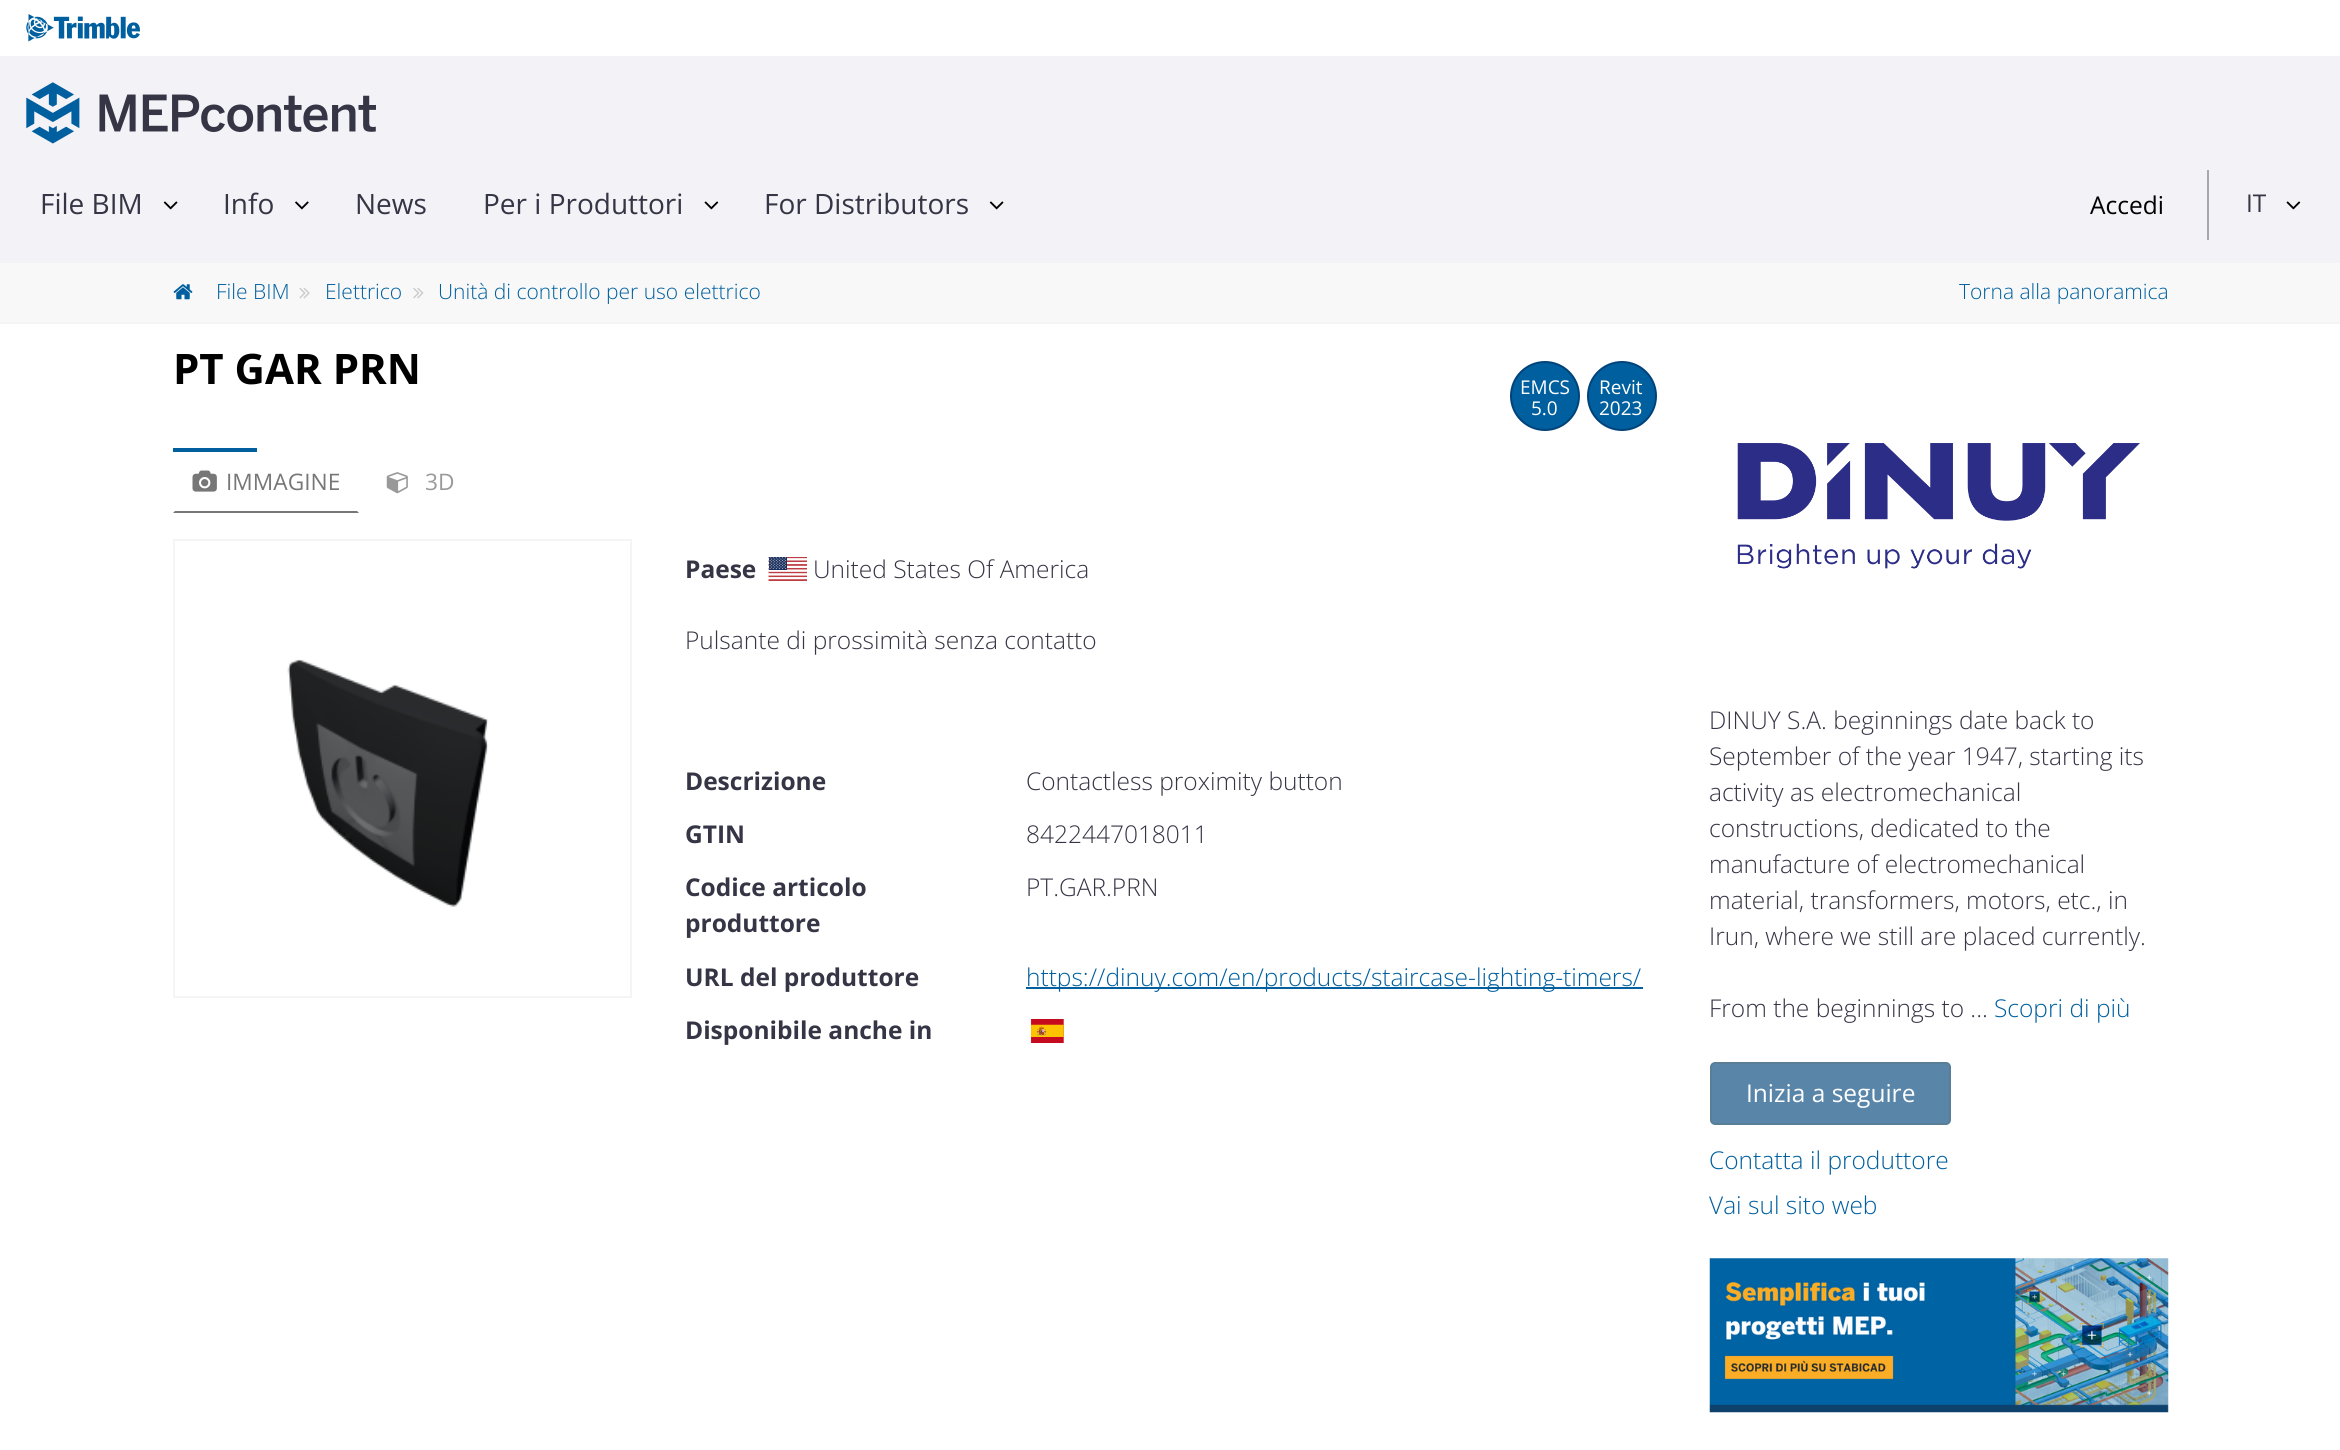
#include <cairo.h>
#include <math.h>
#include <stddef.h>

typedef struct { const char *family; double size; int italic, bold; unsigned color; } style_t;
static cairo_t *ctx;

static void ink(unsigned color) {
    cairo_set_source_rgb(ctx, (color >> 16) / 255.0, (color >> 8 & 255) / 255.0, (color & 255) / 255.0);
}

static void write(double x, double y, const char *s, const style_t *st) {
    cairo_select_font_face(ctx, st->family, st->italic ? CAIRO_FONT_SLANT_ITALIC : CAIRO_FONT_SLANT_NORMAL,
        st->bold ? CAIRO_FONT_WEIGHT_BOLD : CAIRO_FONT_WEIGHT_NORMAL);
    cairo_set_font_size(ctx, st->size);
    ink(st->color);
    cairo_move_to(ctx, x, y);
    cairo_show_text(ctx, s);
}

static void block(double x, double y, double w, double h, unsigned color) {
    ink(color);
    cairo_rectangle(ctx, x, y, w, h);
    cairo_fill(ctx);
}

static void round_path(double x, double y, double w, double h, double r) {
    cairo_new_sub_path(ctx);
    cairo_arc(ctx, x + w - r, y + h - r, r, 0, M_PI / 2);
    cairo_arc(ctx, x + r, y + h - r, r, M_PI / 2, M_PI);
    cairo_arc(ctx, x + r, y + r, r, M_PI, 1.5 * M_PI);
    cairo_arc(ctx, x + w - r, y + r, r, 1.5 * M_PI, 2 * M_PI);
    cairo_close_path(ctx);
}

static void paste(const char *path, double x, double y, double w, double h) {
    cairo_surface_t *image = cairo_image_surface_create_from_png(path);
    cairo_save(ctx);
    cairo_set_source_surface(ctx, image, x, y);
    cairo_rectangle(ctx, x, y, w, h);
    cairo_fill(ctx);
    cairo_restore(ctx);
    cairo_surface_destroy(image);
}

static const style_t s1 = {"Open Sans", 28, 0, 0, 0x363545};
static const style_t s2 = {"Open Sans", 24.5, 0, 0, 0x000000};
static const style_t s3 = {"Open Sans", 24.5, 0, 0, 0x363545};
static const style_t s4 = {"Open Sans Light", 21, 0, 0, 0x005f9e};
static const style_t s5 = {"Open Sans", 42, 0, 1, 0x000000};
static const style_t s6 = {"Open Sans", 19, 0, 0, 0xffffff};
static const style_t s7 = {"Open Sans", 22.75, 0, 0, 0x777777};
static const style_t s8 = {"Open Sans", 22.75, 0, 0, 0x999999};
static const style_t s9 = {"Open Sans", 24.5, 0, 1, 0x363545};
static const style_t s10 = {"Open Sans Light", 24.5, 0, 0, 0x363545};
static const style_t s11 = {"Open Sans Light", 24.5, 0, 0, 0x005f9e};
static const style_t s12 = {"Open Sans", 24.5, 0, 0, 0xffffff};

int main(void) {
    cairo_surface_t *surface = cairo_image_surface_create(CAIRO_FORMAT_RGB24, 2340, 1450);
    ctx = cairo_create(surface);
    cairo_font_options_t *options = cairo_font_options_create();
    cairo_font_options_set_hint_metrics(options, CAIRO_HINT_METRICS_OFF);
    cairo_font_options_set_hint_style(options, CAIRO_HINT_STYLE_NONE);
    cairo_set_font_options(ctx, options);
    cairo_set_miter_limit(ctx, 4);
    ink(0xffffff);
    cairo_paint(ctx);
    block(0, 56, 2340, 207, 0xf3f3f7);
    paste("pic1.png", 26, 14, 114, 28);
    paste("pic2.png", 26, 82, 350, 62);
    write(40, 214, "File BIM", &s1);
    paste("pic3.png", 163, 201, 15, 9);
    write(223, 214, "Info", &s1);
    paste("pic4.png", 295, 201, 14, 9);
    write(355, 214, "News", &s1);
    write(483, 214, "Per i Produttori", &s1);
    paste("pic5.png", 704, 201, 15, 9);
    write(764, 214, "For Distributors", &s1);
    paste("pic3.png", 989, 201, 15, 9);
    write(2090, 214, "Accedi", &s2);
    block(2207, 170, 2, 70, 0xa7a7b0);
    write(2246, 212, "IT", &s3);
    paste("pic5.png", 2286, 201, 15, 9);
    block(0, 263, 2340, 59, 0xf8f8f8);
    block(0, 322, 2340, 2, 0xf4f4f4);
    paste("pic6.png", 173, 284, 20, 16);
    write(216, 299, "File BIM", &s4);
    paste("pic7.png", 299, 287, 11, 12);
    write(325, 299, "Elettrico", &s4);
    paste("pic8.png", 413, 287, 11, 12);
    write(438, 299, "Unità di controllo per uso elettrico", &s4);
    write(1959, 299, "Torna alla panoramica", &s4);
    write(173, 384, "PT GAR PRN", &s5);
    ink(0x005f9e);
    cairo_new_path(ctx);
    cairo_arc(ctx, 1545, 396, 34, 0, 2 * M_PI);
    cairo_fill_preserve(ctx);
    ink(0x00437b);
    cairo_stroke(ctx);
    write(1520, 394, "EMCS", &s6);
    write(1531, 415, "5.0", &s6);
    ink(0x005f9e);
    cairo_new_path(ctx);
    cairo_arc(ctx, 1622, 396, 34, 0, 2 * M_PI);
    cairo_fill_preserve(ctx);
    ink(0x00437b);
    cairo_stroke(ctx);
    write(1599, 394, "Revit", &s6);
    write(1599, 415, "2023", &s6);
    block(173, 448, 84, 4, 0x005f9e);
    ink(0x777777);
    cairo_new_path(ctx);
    cairo_move_to(ctx, 359, 513);
    cairo_line_to(ctx, 173, 513);
    cairo_line_to(ctx, 175, 511);
    cairo_line_to(ctx, 357, 511);
    cairo_close_path(ctx);
    cairo_fill(ctx);
    paste("pic9.png", 192, 470, 25, 22);
    write(226, 490, "IMMAGINE", &s7);
    paste("pic10.png", 386, 472, 22, 22);
    write(425, 490, "3D", &s8);
    cairo_rectangle(ctx, 174, 540, 457, 457);
    ink(0xf5f5f5);
    cairo_stroke(ctx);
    paste("pic11.png", 287, 659, 202, 248);
    write(685, 578, "Paese", &s9);
    paste("pic12.png", 768, 557, 39, 24);
    write(813, 578, "United States Of America", &s10);
    write(685, 649, "Pulsante di prossimità senza contatto", &s10);
    write(685, 790, "Descrizione", &s9);
    write(1026, 790, "Contactless proximity button", &s10);
    write(685, 843, "GTIN", &s9);
    write(1026, 843, "8422447018011", &s10);
    write(685, 896, "Codice articolo", &s9);
    write(685, 932, "produttore", &s9);
    write(1026, 896, "PT.GAR.PRN", &s10);
    write(685, 986, "URL del produttore", &s9);
    block(1026, 987, 617, 2, 0x005f9e);
    write(1026, 986, "https://dinuy.com/en/products/staircase-lighting-timers/", &s11);
    write(685, 1039, "Disponibile anche in", &s9);
    paste("pic13.png", 1031, 1019, 33, 24);
    paste("pic14.png", 1737, 443, 403, 126);
    write(1709, 729, "DINUY S.A. beginnings date back to", &s10);
    write(1709, 765, "September of the year 1947, starting its", &s10);
    write(1709, 801, "activity as electromechanical", &s10);
    write(1709, 837, "constructions, dedicated to the", &s10);
    write(1709, 873, "manufacture of electromechanical", &s10);
    write(1709, 909, "material, transformers, motors, etc., in", &s10);
    write(1709, 945, "Irun, where we still are placed currently.", &s10);
    write(1709, 1017, "From the beginnings to ...", &s10);
    write(1994, 1017, "Scopri di più", &s11);
    ink(0x5985a9);
    round_path(1711, 1063, 239, 61, 4);
    cairo_fill_preserve(ctx);
    ink(0x597f98);
    cairo_stroke(ctx);
    write(1746, 1102, "Inizia a seguire", &s12);
    write(1709, 1169, "Contatta il produttore", &s11);
    write(1709, 1214, "Vai sul sito web", &s11);
    paste("pic15.png", 1709, 1258, 460, 155);
    cairo_surface_write_to_png(surface, "screenshot.png");
    cairo_font_options_destroy(options);
    cairo_destroy(ctx);
    cairo_surface_destroy(surface);
    return 0;
}
